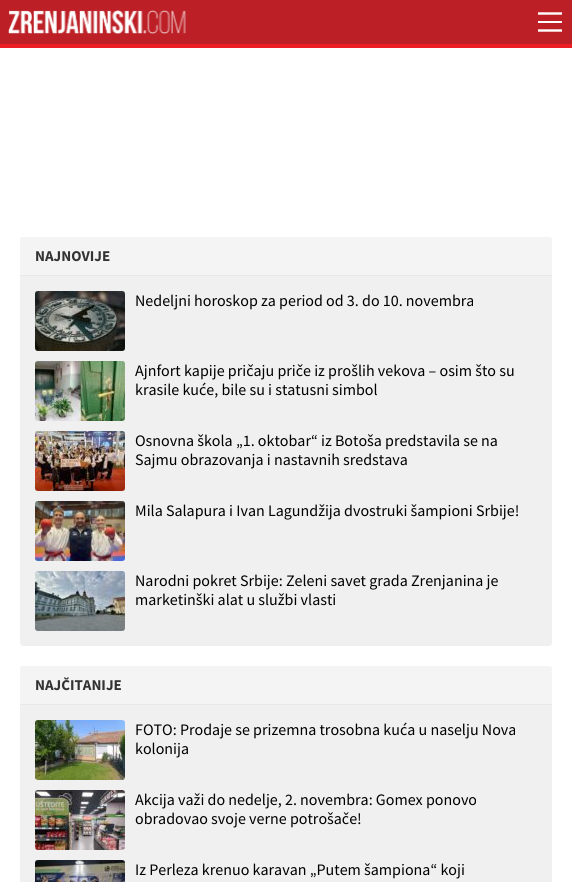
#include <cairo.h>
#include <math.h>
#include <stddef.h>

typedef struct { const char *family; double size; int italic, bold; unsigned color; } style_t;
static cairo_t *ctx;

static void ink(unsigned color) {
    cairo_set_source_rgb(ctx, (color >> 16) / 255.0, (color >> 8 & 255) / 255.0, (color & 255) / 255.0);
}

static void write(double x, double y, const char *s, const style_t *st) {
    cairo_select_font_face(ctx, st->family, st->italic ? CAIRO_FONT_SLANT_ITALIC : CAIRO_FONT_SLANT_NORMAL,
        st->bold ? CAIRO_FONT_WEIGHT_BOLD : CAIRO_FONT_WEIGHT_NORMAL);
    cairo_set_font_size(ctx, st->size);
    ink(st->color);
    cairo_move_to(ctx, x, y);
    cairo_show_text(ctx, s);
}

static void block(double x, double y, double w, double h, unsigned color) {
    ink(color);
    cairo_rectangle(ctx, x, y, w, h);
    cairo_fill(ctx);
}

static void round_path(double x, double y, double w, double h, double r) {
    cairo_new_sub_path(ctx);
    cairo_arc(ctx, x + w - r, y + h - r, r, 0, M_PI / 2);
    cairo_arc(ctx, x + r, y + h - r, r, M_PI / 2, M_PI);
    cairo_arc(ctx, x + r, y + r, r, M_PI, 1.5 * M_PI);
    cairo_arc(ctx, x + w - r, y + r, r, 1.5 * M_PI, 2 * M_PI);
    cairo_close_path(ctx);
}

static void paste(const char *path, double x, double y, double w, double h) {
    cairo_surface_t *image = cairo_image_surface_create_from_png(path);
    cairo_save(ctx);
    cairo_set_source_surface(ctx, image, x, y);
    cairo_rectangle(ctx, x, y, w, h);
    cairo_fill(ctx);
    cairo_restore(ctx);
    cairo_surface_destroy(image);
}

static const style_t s1 = {"Source Sans Pro", 15, 0, 1, 0x333333};
static const style_t s2 = {"Source Sans Pro", 16, 0, 0, 0x000000};

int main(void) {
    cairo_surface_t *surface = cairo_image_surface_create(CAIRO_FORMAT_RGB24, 572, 882);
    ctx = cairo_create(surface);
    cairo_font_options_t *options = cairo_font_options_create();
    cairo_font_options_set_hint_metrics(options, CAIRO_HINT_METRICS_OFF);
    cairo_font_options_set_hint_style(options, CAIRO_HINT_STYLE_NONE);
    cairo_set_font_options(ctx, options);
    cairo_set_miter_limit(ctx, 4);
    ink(0xffffff);
    cairo_paint(ctx);
    block(0, 0, 572, 44, 0xbc2026);
    block(0, 44, 572, 4, 0xed1d26);
    paste("pic1.png", 8, 10, 178, 24);
    cairo_new_path(ctx);
    cairo_move_to(ctx, 562, 30.5);
    cairo_line_to(ctx, 538, 30.5);
    ink(0xffffff);
    cairo_set_line_width(ctx, 2.4);
    cairo_stroke(ctx);
    block(538, 21, 24, 2, 0xffffff);
    cairo_new_path(ctx);
    cairo_move_to(ctx, 562, 13.5);
    cairo_line_to(ctx, 538, 13.5);
    cairo_stroke(ctx);
    ink(0xf0f0f0);
    round_path(20, 237, 532, 409, 3);
    cairo_fill(ctx);
    ink(0xf4f4f4);
    cairo_new_path(ctx);
    cairo_move_to(ctx, 23, 237);
    cairo_line_to(ctx, 549, 237);
    cairo_curve_to(ctx, 550.5, 237, 552, 238.5, 552, 240);
    cairo_line_to(ctx, 552, 276);
    cairo_line_to(ctx, 20, 276);
    cairo_line_to(ctx, 20, 240);
    cairo_curve_to(ctx, 20, 238.5, 21.5, 237, 23, 237);
    cairo_close_path(ctx);
    cairo_fill(ctx);
    block(20, 275, 532, 1, 0xe9e8e9);
    write(35, 261, "NAJNOVIJE", &s1);
    paste("pic2.png", 35, 291, 90, 60);
    write(135, 306, "Nedeljni horoskop za period od 3. do 10. novembra", &s2);
    paste("pic3.png", 35, 361, 90, 60);
    write(135, 376, "Ajnfort kapije pričaju priče iz prošlih vekova – osim što su", &s2);
    write(135, 395, "krasile kuće, bile su i statusni simbol", &s2);
    paste("pic4.png", 35, 431, 90, 60);
    write(135, 446, "Osnovna škola „1. oktobar“ iz Botoša predstavila se na", &s2);
    write(135, 465, "Sajmu obrazovanja i nastavnih sredstava", &s2);
    paste("pic5.png", 35, 501, 90, 60);
    write(135, 516, "Mila Salapura i Ivan Lagundžija dvostruki šampioni Srbije!", &s2);
    paste("pic6.png", 35, 571, 90, 60);
    write(135, 586, "Narodni pokret Srbije: Zeleni savet grada Zrenjanina je", &s2);
    write(135, 605, "marketinški alat u službi vlasti", &s2);
    ink(0xf0f0f0);
    round_path(20, 666, 532, 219, 3);
    cairo_fill(ctx);
    ink(0xf4f4f4);
    cairo_new_path(ctx);
    cairo_move_to(ctx, 23, 666);
    cairo_line_to(ctx, 549, 666);
    cairo_curve_to(ctx, 550.5, 666, 552, 667.5, 552, 669);
    cairo_line_to(ctx, 552, 705);
    cairo_line_to(ctx, 20, 705);
    cairo_line_to(ctx, 20, 669);
    cairo_curve_to(ctx, 20, 667.5, 21.5, 666, 23, 666);
    cairo_close_path(ctx);
    cairo_fill(ctx);
    block(20, 704, 532, 1, 0xe9e8e9);
    write(35, 690, "NAJČITANIJE", &s1);
    paste("pic7.png", 35, 720, 90, 60);
    write(135, 735, "FOTO: Prodaje se prizemna trosobna kuća u naselju Nova", &s2);
    write(135, 754, "kolonija", &s2);
    paste("pic8.png", 35, 790, 90, 60);
    write(135, 805, "Akcija važi do nedelje, 2. novembra: Gomex ponovo", &s2);
    write(135, 824, "obradovao svoje verne potrošače!", &s2);
    paste("pic9.png", 35, 860, 90, 22);
    write(135, 875, "Iz Perleza krenuo karavan „Putem šampiona“ koji", &s2);
    cairo_surface_write_to_png(surface, "screenshot.png");
    cairo_font_options_destroy(options);
    cairo_destroy(ctx);
    cairo_surface_destroy(surface);
    return 0;
}
